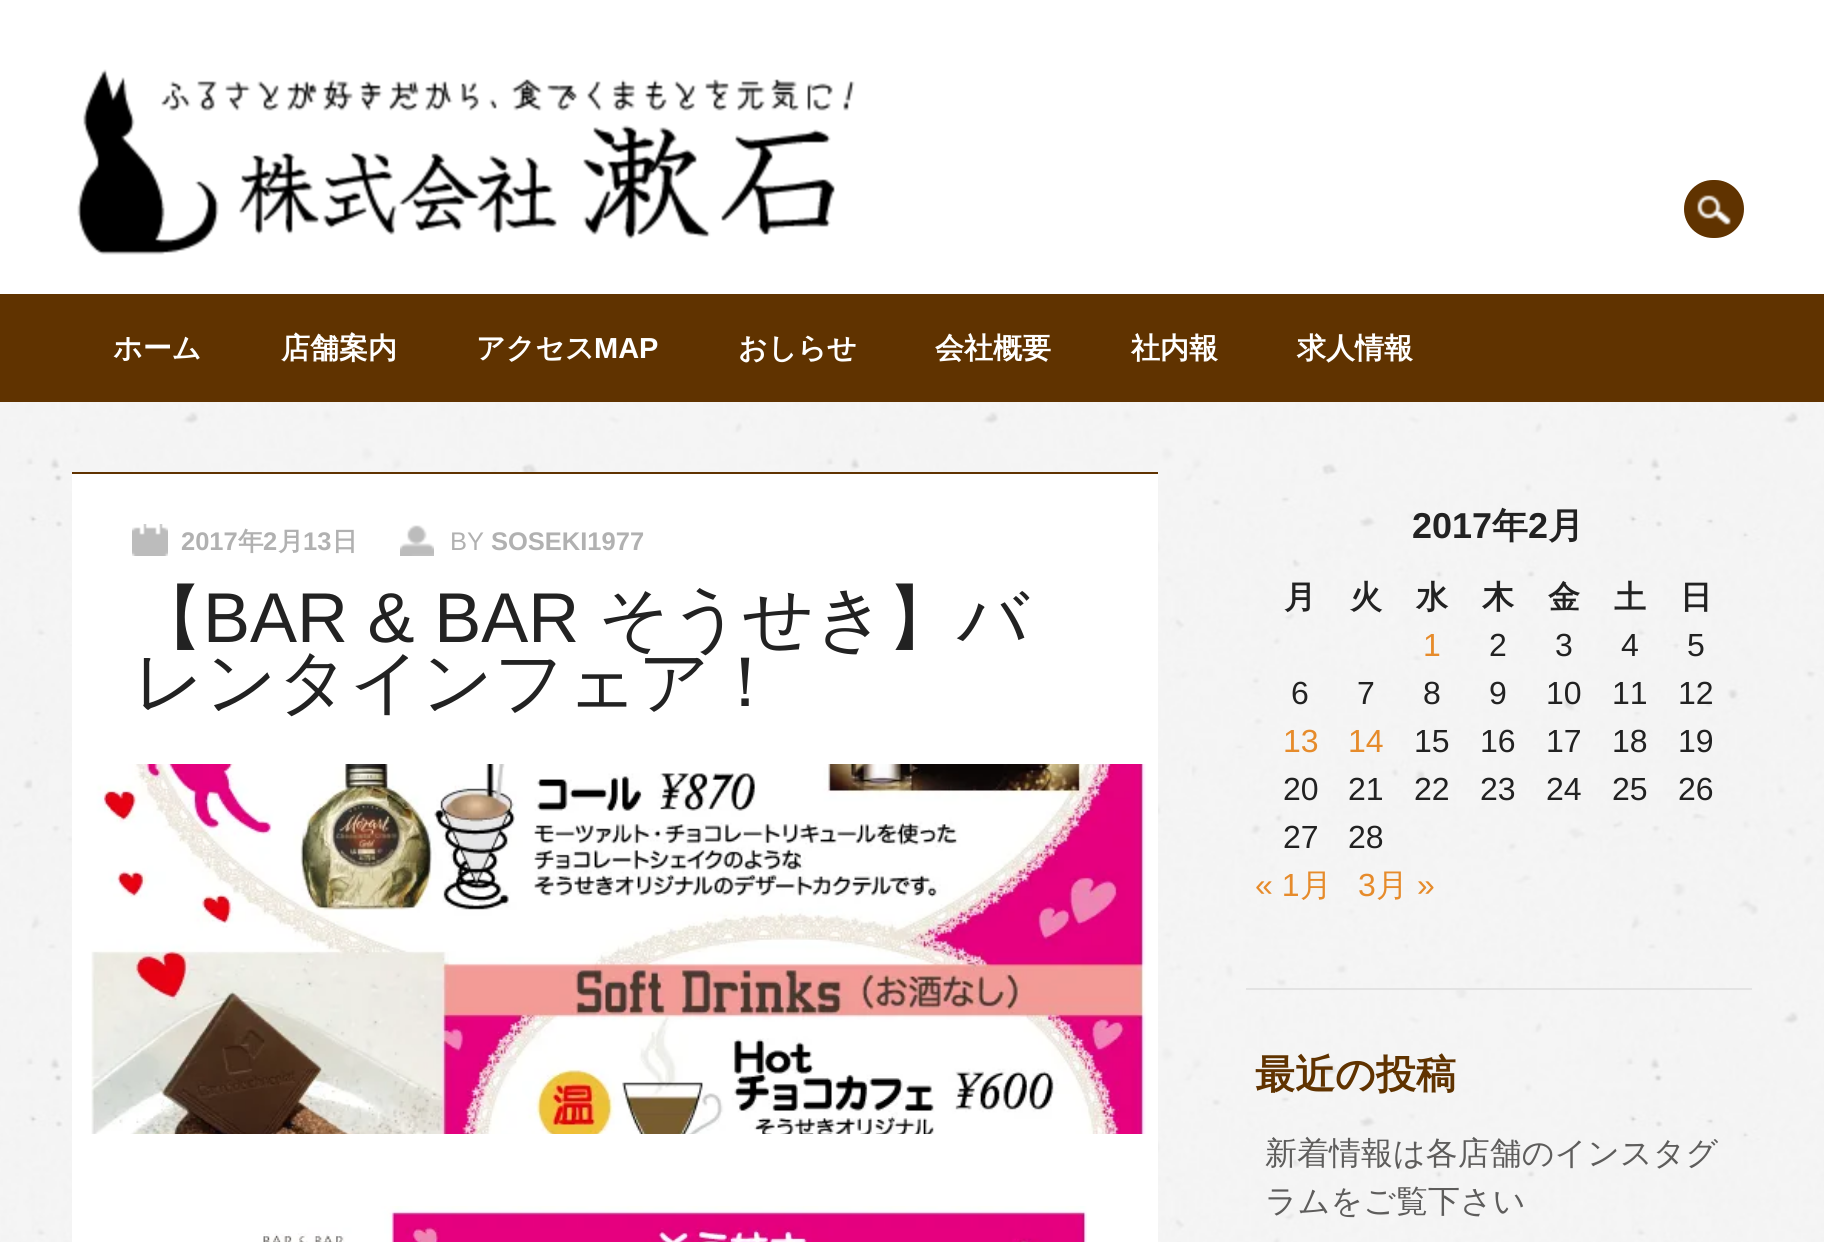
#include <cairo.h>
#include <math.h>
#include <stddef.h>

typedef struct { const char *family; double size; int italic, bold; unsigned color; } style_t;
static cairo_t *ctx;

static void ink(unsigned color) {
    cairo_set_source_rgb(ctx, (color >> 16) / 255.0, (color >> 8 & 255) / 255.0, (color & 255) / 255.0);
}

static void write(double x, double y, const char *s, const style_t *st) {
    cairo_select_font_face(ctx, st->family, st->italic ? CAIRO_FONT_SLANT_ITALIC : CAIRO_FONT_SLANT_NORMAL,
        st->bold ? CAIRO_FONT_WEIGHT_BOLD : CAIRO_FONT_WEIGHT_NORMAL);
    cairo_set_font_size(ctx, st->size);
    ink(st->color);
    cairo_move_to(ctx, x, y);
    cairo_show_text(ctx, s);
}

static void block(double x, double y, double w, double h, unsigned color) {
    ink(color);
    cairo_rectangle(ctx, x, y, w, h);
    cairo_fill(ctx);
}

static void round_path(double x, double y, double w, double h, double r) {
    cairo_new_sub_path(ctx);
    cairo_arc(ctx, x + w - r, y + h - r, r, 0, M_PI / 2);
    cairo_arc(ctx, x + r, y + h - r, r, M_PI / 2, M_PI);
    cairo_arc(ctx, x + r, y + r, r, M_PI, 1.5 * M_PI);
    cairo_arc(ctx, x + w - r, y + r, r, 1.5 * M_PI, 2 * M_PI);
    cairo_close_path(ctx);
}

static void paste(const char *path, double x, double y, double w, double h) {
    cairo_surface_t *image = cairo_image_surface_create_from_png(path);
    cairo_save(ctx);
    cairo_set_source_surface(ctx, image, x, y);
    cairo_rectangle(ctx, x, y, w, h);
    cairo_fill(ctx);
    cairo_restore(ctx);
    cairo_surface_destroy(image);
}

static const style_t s1 = {"WenQuanYi Zen Hei", 29, 0, 1, 0xffffff};
static const style_t s2 = {"Liberation Sans", 29, 0, 1, 0xffffff};
static const style_t s3 = {"Liberation Sans", 25.5, 0, 1, 0xb1b1b1};
static const style_t s4 = {"WenQuanYi Zen Hei", 25.5, 0, 1, 0xb1b1b1};
static const style_t s5 = {"Liberation Sans", 25.5, 0, 0, 0xb1b1b1};
static const style_t s6 = {"WenQuanYi Zen Hei Medium", 70.5, 0, 0, 0x222222};
static const style_t s7 = {"Liberation Sans", 70.5, 0, 0, 0x222222};
static const style_t s8 = {"Liberation Sans", 36, 0, 1, 0x222222};
static const style_t s9 = {"WenQuanYi Zen Hei", 36, 0, 1, 0x222222};
static const style_t s10 = {"WenQuanYi Zen Hei", 32, 0, 1, 0x222222};
static const style_t s11 = {"Liberation Sans", 32, 0, 0, 0xe68b2b};
static const style_t s12 = {"Liberation Sans", 32, 0, 0, 0x222222};
static const style_t s13 = {"WenQuanYi Zen Hei Medium", 32, 0, 0, 0xe68b2b};
static const style_t s14 = {"WenQuanYi Zen Hei", 40, 0, 1, 0x603300};
static const style_t s15 = {"WenQuanYi Zen Hei Medium", 32, 0, 0, 0x5e5d5c};

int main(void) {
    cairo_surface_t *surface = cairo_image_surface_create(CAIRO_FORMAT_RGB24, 1824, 1242);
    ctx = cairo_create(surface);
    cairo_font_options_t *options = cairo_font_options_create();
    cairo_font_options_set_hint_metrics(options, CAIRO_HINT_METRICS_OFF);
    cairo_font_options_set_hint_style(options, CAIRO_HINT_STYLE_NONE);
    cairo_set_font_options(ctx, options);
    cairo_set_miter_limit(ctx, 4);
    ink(0xffffff);
    cairo_paint(ctx);
    paste("pic1.png", 0, 402, 1824, 840);
    paste("pic2.png", 77, 69, 778, 186);
    ink(0x603300);
    round_path(1684, 180, 60, 58, 29);
    cairo_fill(ctx);
    paste("pic3.png", 1697, 195, 34, 30);
    block(0, 294, 1824, 108, 0x603300);
    write(113, 358, "ホーム", &s1);
    write(281, 358, "店舗案内", &s1);
    write(476, 358, "アクセス", &s1);
    write(594, 358, "MAP", &s2);
    write(738, 358, "おしらせ", &s1);
    write(935, 358, "会社概要", &s1);
    write(1131, 358, "社内報", &s1);
    write(1297, 358, "求人情報", &s1);
    block(72, 474, 1086, 768, 0xffffff);
    block(72, 472, 1086, 2, 0x603300);
    paste("pic4.png", 132, 524, 36, 32);
    write(181, 550, "2017", &s3);
    write(238, 550, "年", &s4);
    write(263, 550, "2", &s3);
    write(278, 550, "月", &s4);
    write(303, 550, "13", &s3);
    write(332, 550, "日", &s4);
    paste("pic5.png", 400, 525, 34, 31);
    write(450, 550, "BY", &s5);
    write(491, 550, "SOSEKI1977", &s3);
    write(133, 642, "【", &s6);
    write(203, 642, "BAR & BAR", &s7);
    write(598, 642, "そうせき】バ", &s6);
    write(133, 706, "レンタインフェア！", &s6);
    paste("pic6.png", 91, 764, 1055, 370);
    paste("pic7.png", 263, 1206, 824, 36);
    block(1246, 988, 506, 2, 0xe3e3e3);
    write(1412, 538, "2017", &s8);
    write(1492, 538, "年", &s9);
    write(1528, 538, "2", &s8);
    write(1548, 538, "月", &s9);
    write(1284, 608, "月", &s10);
    write(1350, 608, "火", &s10);
    write(1416, 608, "水", &s10);
    write(1482, 608, "木", &s10);
    write(1548, 608, "金", &s10);
    write(1614, 608, "土", &s10);
    write(1680, 608, "日", &s10);
    write(1423, 656, "1", &s11);
    write(1489, 656, "2", &s12);
    write(1555, 656, "3", &s12);
    write(1621, 656, "4", &s12);
    write(1687, 656, "5", &s12);
    write(1291, 704, "6", &s12);
    write(1357, 704, "7", &s12);
    write(1423, 704, "8", &s12);
    write(1489, 704, "9", &s12);
    write(1546, 704, "10", &s12);
    write(1612, 704, "11", &s12);
    write(1678, 704, "12", &s12);
    write(1283, 752, "13", &s11);
    write(1348, 752, "14", &s11);
    write(1414, 752, "15", &s12);
    write(1480, 752, "16", &s12);
    write(1546, 752, "17", &s12);
    write(1612, 752, "18", &s12);
    write(1678, 752, "19", &s12);
    write(1283, 800, "20", &s12);
    write(1348, 800, "21", &s12);
    write(1414, 800, "22", &s12);
    write(1480, 800, "23", &s12);
    write(1546, 800, "24", &s12);
    write(1612, 800, "25", &s12);
    write(1678, 800, "26", &s12);
    write(1283, 848, "27", &s12);
    write(1348, 848, "28", &s12);
    write(1255, 896, "« 1", &s11);
    write(1300, 896, "月", &s13);
    write(1358, 896, "3", &s11);
    write(1376, 896, "月", &s13);
    write(1417, 896, "»", &s11);
    write(1255, 1088, "最近の投稿", &s14);
    write(1265, 1164, "新着情報は各店舗のインスタグ", &s15);
    write(1265, 1212, "ラムをご覧下さい", &s15);
    cairo_surface_write_to_png(surface, "screenshot.png");
    cairo_font_options_destroy(options);
    cairo_destroy(ctx);
    cairo_surface_destroy(surface);
    return 0;
}
